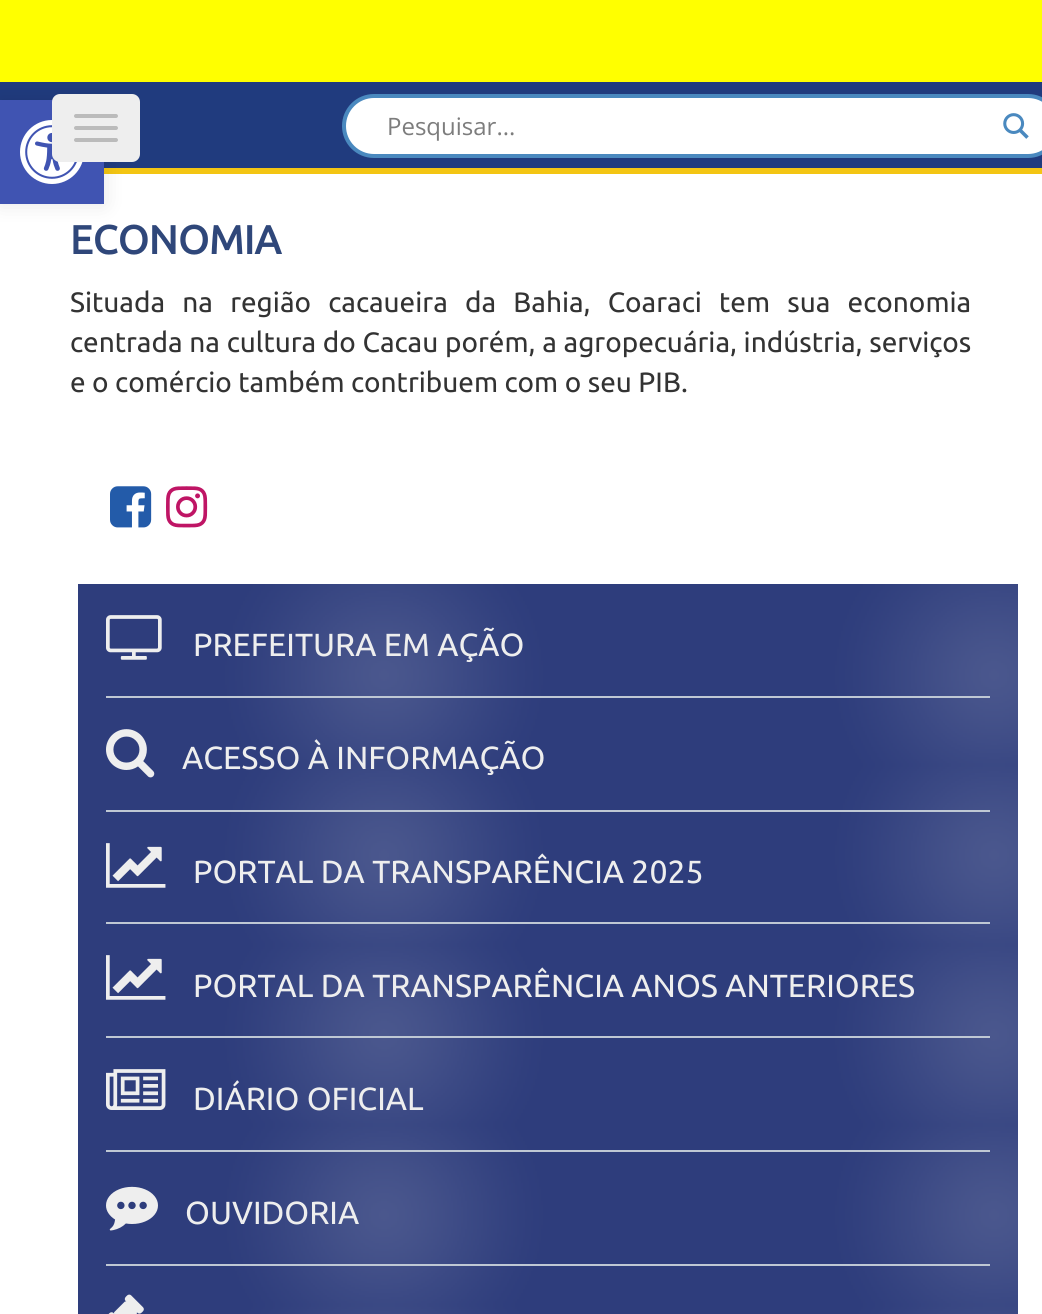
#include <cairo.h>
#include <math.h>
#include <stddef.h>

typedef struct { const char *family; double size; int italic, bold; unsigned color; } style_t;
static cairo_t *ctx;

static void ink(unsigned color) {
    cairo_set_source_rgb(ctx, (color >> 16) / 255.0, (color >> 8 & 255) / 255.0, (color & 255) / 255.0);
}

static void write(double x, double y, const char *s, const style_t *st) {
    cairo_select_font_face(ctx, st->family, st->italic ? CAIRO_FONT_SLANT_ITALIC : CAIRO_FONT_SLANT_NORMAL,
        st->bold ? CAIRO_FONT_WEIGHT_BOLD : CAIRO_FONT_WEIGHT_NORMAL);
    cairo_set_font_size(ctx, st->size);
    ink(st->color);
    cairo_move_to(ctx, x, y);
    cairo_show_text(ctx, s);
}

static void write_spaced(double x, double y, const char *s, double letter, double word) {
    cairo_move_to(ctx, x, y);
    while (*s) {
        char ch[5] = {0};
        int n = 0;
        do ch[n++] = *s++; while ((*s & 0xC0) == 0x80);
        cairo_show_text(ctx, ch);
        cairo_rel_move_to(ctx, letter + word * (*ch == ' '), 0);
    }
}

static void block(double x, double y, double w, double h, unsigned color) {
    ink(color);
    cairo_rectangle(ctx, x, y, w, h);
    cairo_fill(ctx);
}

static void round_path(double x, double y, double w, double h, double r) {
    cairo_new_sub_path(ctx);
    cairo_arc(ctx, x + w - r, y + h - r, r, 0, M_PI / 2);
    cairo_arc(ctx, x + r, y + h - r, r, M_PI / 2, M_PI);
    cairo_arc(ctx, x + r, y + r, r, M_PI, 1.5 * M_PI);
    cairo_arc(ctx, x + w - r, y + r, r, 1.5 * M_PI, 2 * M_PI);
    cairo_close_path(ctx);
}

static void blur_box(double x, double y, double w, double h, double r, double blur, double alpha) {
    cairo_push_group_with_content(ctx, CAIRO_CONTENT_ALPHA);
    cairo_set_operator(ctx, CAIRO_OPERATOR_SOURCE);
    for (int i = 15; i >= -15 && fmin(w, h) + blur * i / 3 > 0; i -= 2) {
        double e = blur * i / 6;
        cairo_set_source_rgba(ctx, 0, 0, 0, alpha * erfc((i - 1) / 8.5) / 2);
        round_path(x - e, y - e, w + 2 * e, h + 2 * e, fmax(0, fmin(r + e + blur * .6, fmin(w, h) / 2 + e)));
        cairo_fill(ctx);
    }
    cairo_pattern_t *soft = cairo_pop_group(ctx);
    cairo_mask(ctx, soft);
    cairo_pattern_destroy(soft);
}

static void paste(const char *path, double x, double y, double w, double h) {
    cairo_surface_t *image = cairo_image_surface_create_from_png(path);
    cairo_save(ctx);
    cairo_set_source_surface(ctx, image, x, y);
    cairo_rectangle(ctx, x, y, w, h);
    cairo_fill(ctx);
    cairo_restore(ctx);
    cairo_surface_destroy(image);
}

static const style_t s1 = {"Open Sans", 24, 0, 0, 0x7d7d7d};
static const style_t s2 = {"Ubuntu", 40, 0, 1, 0x2f477a};
static const style_t s3 = {"Ubuntu", 28, 0, 0, 0x333333};
static const style_t s4 = {"Ubuntu", 32, 0, 0, 0xeeeeee};

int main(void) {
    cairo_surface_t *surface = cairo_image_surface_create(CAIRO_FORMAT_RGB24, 1042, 1314);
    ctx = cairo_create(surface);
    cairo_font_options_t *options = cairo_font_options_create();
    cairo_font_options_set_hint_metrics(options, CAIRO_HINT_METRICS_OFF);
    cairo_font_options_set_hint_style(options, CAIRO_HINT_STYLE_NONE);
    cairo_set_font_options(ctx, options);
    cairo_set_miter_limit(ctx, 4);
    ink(0xffff00);
    cairo_paint(ctx);
    block(0, 82, 1042, 86, 0x203b7e);
    block(104, 168, 938, 6, 0xf3c513);
    block(0, 174, 1042, 1140, 0xffffff);
    ink(0x000000);
    blur_box(0, 100, 104, 104, 0, 10, 0.1);
    block(0, 100, 104, 104, 0x4054b2);
    paste("pic1.png", 20, 120, 63, 64);
    ink(0xeeeeee);
    round_path(52, 94, 88, 68, 8);
    cairo_fill(ctx);
    ink(0xbbbbbb);
    round_path(74, 114, 44, 4, 2);
    cairo_fill(ctx);
    round_path(74, 126, 44, 4, 2);
    cairo_fill(ctx);
    round_path(74, 138, 44, 4, 2);
    cairo_fill(ctx);
    ink(0xffffff);
    round_path(344, 96, 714, 60, 30);
    cairo_fill_preserve(ctx);
    ink(0x4a89bf);
    cairo_set_line_width(ctx, 4);
    cairo_stroke(ctx);
    write(387, 135, "Pesquisar...", &s1);
    paste("pic2.png", 1003, 113, 26, 26);
    write(70, 254, "ECONOMIA", &s2);
    cairo_select_font_face(ctx, "Ubuntu", CAIRO_FONT_SLANT_NORMAL, CAIRO_FONT_WEIGHT_NORMAL);
    cairo_set_font_size(ctx, 28);
    ink(0x333333);
    write_spaced(70, 312, "Situada na região cacaueira da Bahia, Coaraci tem sua economia", 0, 10.75);
    write_spaced(70, 352, "centrada na cultura do Cacau porém, a agropecuária, indústria, serviços", 0, 0.25);
    write(70, 392, "e o comércio também contribuem com o seu PIB.", &s3);
    paste("pic3.png", 110, 486, 42, 42);
    paste("pic4.png", 166, 486, 42, 42);
    paste("pic5.png", 78, 584, 940, 730);
    block(106, 696, 884, 2, 0xbfc8d4);
    paste("pic6.png", 106, 615, 56, 45);
    write(193, 656, "PREFEITURA EM AÇÃO", &s4);
    block(106, 810, 884, 2, 0xbfc8d4);
    paste("pic7.png", 106, 729, 49, 49);
    write(182, 769, "ACESSO À INFORMAÇÃO", &s4);
    block(106, 922, 884, 2, 0xbfc8d4);
    paste("pic8.png", 106, 843, 60, 45);
    write(193, 883, "PORTAL DA TRANSPARÊNCIA 2025", &s4);
    block(106, 1036, 884, 2, 0xbfc8d4);
    paste("pic8.png", 106, 955, 60, 45);
    write(193, 997, "PORTAL DA TRANSPARÊNCIA ANOS ANTERIORES", &s4);
    block(106, 1150, 884, 2, 0xbfc8d4);
    paste("pic9.png", 106, 1069, 60, 41);
    write(193, 1110, "DIÁRIO OFICIAL", &s4);
    block(106, 1264, 884, 2, 0xbfc8d4);
    paste("pic10.png", 106, 1186, 52, 45);
    write(185, 1224, "OUVIDORIA", &s4);
    paste("pic11.png", 108, 1294, 36, 20);
    cairo_surface_write_to_png(surface, "screenshot.png");
    cairo_font_options_destroy(options);
    cairo_destroy(ctx);
    cairo_surface_destroy(surface);
    return 0;
}
